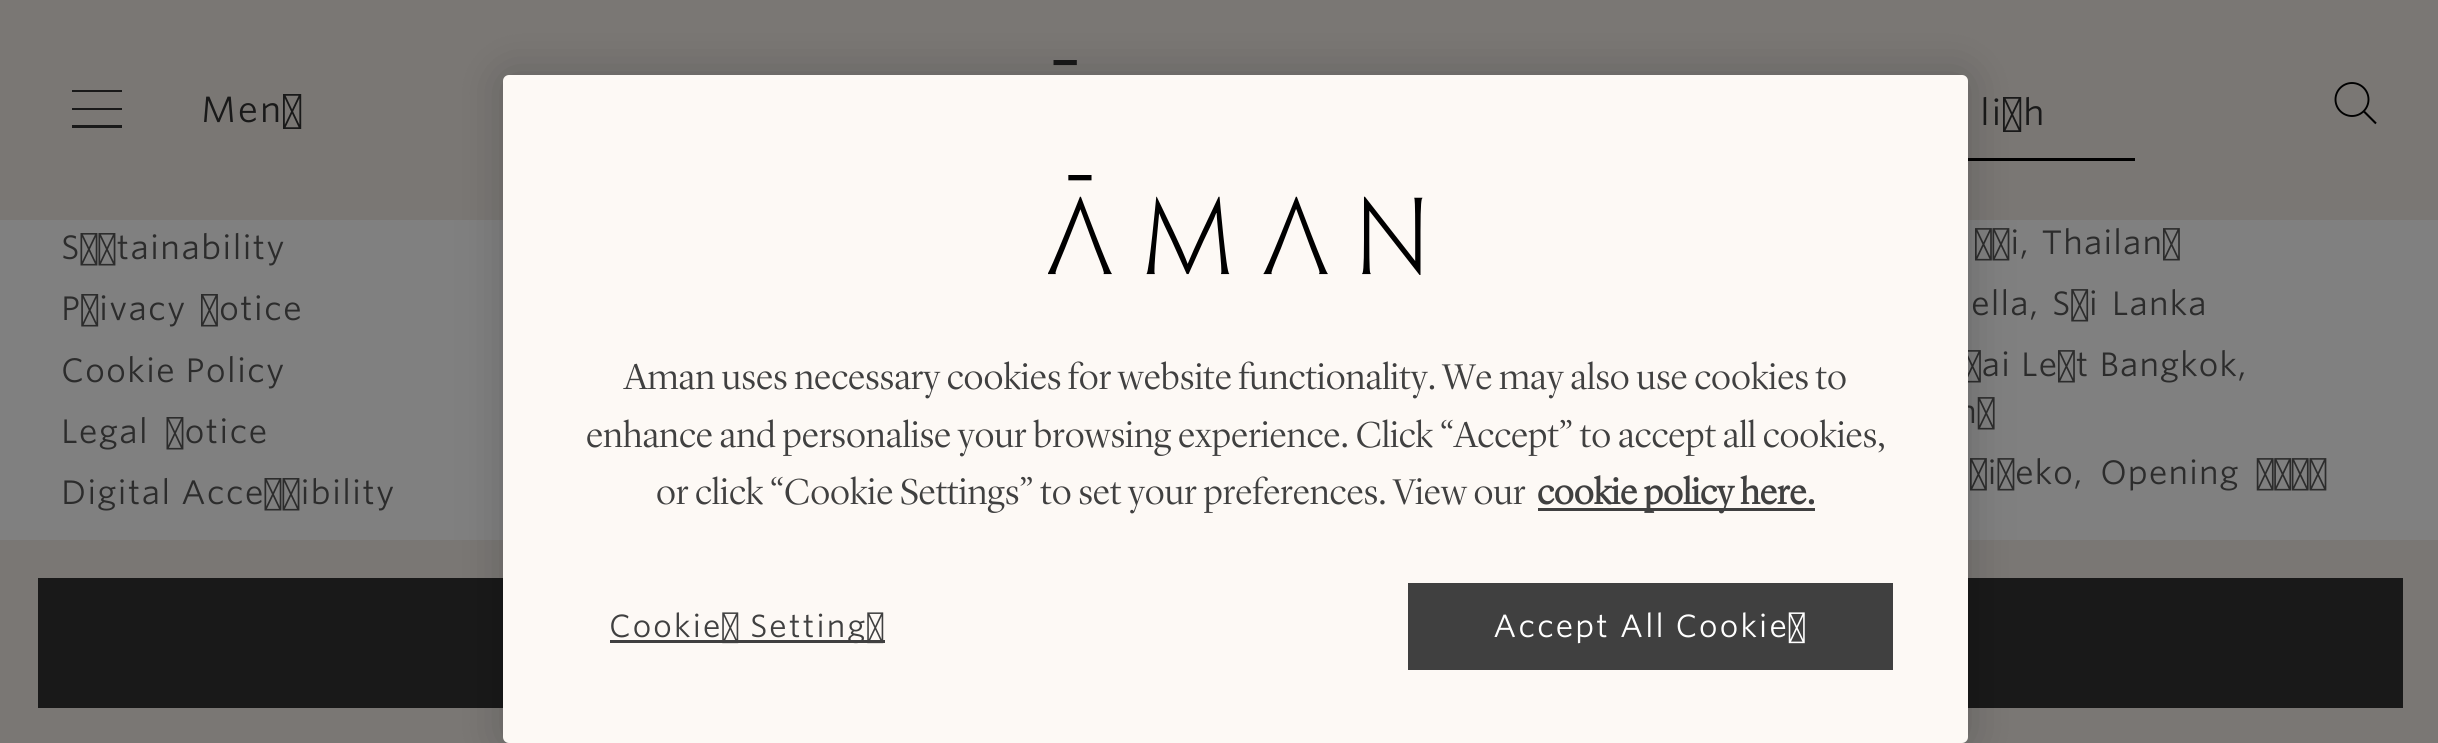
#include <cairo.h>
#include <math.h>
#include <stddef.h>

typedef struct { const char *family; double size; int italic, bold; unsigned color; } style_t;
static cairo_t *ctx;

static void ink(unsigned color) {
    cairo_set_source_rgb(ctx, (color >> 16) / 255.0, (color >> 8 & 255) / 255.0, (color & 255) / 255.0);
}

static void write(double x, double y, const char *s, const style_t *st) {
    cairo_select_font_face(ctx, st->family, st->italic ? CAIRO_FONT_SLANT_ITALIC : CAIRO_FONT_SLANT_NORMAL,
        st->bold ? CAIRO_FONT_WEIGHT_BOLD : CAIRO_FONT_WEIGHT_NORMAL);
    cairo_set_font_size(ctx, st->size);
    ink(st->color);
    cairo_move_to(ctx, x, y);
    cairo_show_text(ctx, s);
}

static void write_spaced(double x, double y, const char *s, double letter, double word) {
    cairo_move_to(ctx, x, y);
    while (*s) {
        char ch[5] = {0};
        int n = 0;
        do ch[n++] = *s++; while ((*s & 0xC0) == 0x80);
        cairo_show_text(ctx, ch);
        cairo_rel_move_to(ctx, letter + word * (*ch == ' '), 0);
    }
}

static void block(double x, double y, double w, double h, unsigned color) {
    ink(color);
    cairo_rectangle(ctx, x, y, w, h);
    cairo_fill(ctx);
}

static void round_path(double x, double y, double w, double h, double r) {
    cairo_new_sub_path(ctx);
    cairo_arc(ctx, x + w - r, y + h - r, r, 0, M_PI / 2);
    cairo_arc(ctx, x + r, y + h - r, r, M_PI / 2, M_PI);
    cairo_arc(ctx, x + r, y + r, r, M_PI, 1.5 * M_PI);
    cairo_arc(ctx, x + w - r, y + r, r, 1.5 * M_PI, 2 * M_PI);
    cairo_close_path(ctx);
}

static void blur_box(double x, double y, double w, double h, double r, double blur, double alpha) {
    cairo_push_group_with_content(ctx, CAIRO_CONTENT_ALPHA);
    cairo_set_operator(ctx, CAIRO_OPERATOR_SOURCE);
    for (int i = 15; i >= -15 && fmin(w, h) + blur * i / 3 > 0; i -= 2) {
        double e = blur * i / 6;
        cairo_set_source_rgba(ctx, 0, 0, 0, alpha * erfc((i - 1) / 8.5) / 2);
        round_path(x - e, y - e, w + 2 * e, h + 2 * e, fmax(0, fmin(r + e + blur * .6, fmin(w, h) / 2 + e)));
        cairo_fill(ctx);
    }
    cairo_pattern_t *soft = cairo_pop_group(ctx);
    cairo_mask(ctx, soft);
    cairo_pattern_destroy(soft);
}

static void paste(const char *path, double x, double y, double w, double h) {
    cairo_surface_t *image = cairo_image_surface_create_from_png(path);
    cairo_save(ctx);
    cairo_set_source_surface(ctx, image, x, y);
    cairo_rectangle(ctx, x, y, w, h);
    cairo_fill(ctx);
    cairo_restore(ctx);
    cairo_surface_destroy(image);
}

static const style_t s1 = {"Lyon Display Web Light", 37.1, 0, 0, 0x404040};
static const style_t s2 = {"Lyon Display Web", 37.1, 0, 1, 0x404040};

int main(void) {
    cairo_surface_t *surface = cairo_image_surface_create(CAIRO_FORMAT_RGB24, 2438, 743);
    ctx = cairo_create(surface);
    cairo_font_options_t *options = cairo_font_options_create();
    cairo_font_options_set_hint_metrics(options, CAIRO_HINT_METRICS_OFF);
    cairo_font_options_set_hint_style(options, CAIRO_HINT_STYLE_NONE);
    cairo_set_font_options(ctx, options);
    cairo_set_miter_limit(ctx, 4);
    ink(0x808080);
    cairo_paint(ctx);
    block(0, 0, 2438, 220, 0x7a7774);
    paste("pic1.png", 1053, 60, 24, 6);
    ink(0x191919);
    cairo_new_path(ctx);
    cairo_move_to(ctx, 72, 90);
    cairo_line_to(ctx, 122, 90);
    cairo_line_to(ctx, 122, 92);
    cairo_line_to(ctx, 72, 92);
    cairo_close_path(ctx);
    cairo_move_to(ctx, 72, 108);
    cairo_line_to(ctx, 122, 108);
    cairo_line_to(ctx, 122, 110);
    cairo_line_to(ctx, 72, 110);
    cairo_close_path(ctx);
    cairo_move_to(ctx, 72, 125);
    cairo_line_to(ctx, 122, 125);
    cairo_line_to(ctx, 122, 128);
    cairo_line_to(ctx, 72, 128);
    cairo_close_path(ctx);
    cairo_fill(ctx);
    cairo_select_font_face(ctx, "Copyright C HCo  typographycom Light", CAIRO_FONT_SLANT_NORMAL, CAIRO_FONT_WEIGHT_NORMAL);
    cairo_set_font_size(ctx, 35);
    write_spaced(201, 122, "Menu", 1.75, 0);
    cairo_new_path(ctx);
    cairo_arc(ctx, 2352, 99.5, 16.5, 0, 2 * M_PI);
    ink(0x000000);
    cairo_set_line_width(ctx, 1.9);
    cairo_stroke(ctx);
    cairo_new_path(ctx);
    cairo_move_to(ctx, 2364, 111.5);
    cairo_line_to(ctx, 2376, 123.5);
    cairo_set_line_width(ctx, 2.1);
    cairo_stroke(ctx);
    block(1968, 158, 167, 3, 0x000000);
    ink(0x191919);
    write_spaced(1980, 125, "lish", 1.75, 0);
    block(0, 540, 2438, 203, 0x7a7774);
    block(38, 578, 2365, 130, 0x191919);
    cairo_set_font_size(ctx, 32.5);
    ink(0x2c2c2c);
    write_spaced(61, 259, "Sustainability", 1.05, 0);
    write_spaced(61, 320, "Privacy Notice", 1.05, 5);
    write_spaced(61, 382, "Cookie Policy", 1.05, 0);
    write_spaced(61, 443, "Legal Notice", 1.05, 8);
    write_spaced(61, 504, "Digital Accessibility", 1.05, 0);
    cairo_set_font_size(ctx, 32.4);
    write_spaced(1975, 254, "uri, Thailand", 0.75, 3);
    write_spaced(1971, 315, "ella, Sri Lanka", 0.75, 4);
    write_spaced(1964, 376, "Nai Lert Bangkok,", 0.75, 1);
    write_spaced(1957, 423, "nd", 0.75, 0);
    write_spaced(1970, 484, "Niseko, Opening 2030", 0.75, 8);
    ink(0x000000);
    blur_box(503, 75, 1465, 668, 6, 22.5, 0.2);
    ink(0xfdf9f5);
    round_path(503, 75, 1465, 668, 6);
    cairo_fill(ctx);
    paste("pic2.png", 1048, 175, 375, 100);
    write(624, 389, "Aman uses necessary cookies for website functionality. We may also use cookies to", &s1);
    write(586, 447, "enhance and personalise your browsing experience. Click “Accept” to accept all cookies,", &s1);
    write(656, 504, "or click “Cookie Settings” to set your preferences. View our", &s1);
    block(1538, 508, 277, 3, 0x404040);
    write(1537, 504, "cookie policy here.", &s2);
    block(610, 640, 275, 3, 0x404040);
    cairo_select_font_face(ctx, "Copyright C HCo  typographycom Light", CAIRO_FONT_SLANT_NORMAL, CAIRO_FONT_WEIGHT_NORMAL);
    cairo_set_font_size(ctx, 30.75);
    write_spaced(609, 637, "Cookies Settings", 1.75, 0);
    block(1408, 583, 485, 87, 0x404040);
    ink(0xffffff);
    write_spaced(1493, 637, "Accept All Cookies", 1.75, 0);
    cairo_surface_write_to_png(surface, "screenshot.png");
    cairo_font_options_destroy(options);
    cairo_destroy(ctx);
    cairo_surface_destroy(surface);
    return 0;
}
